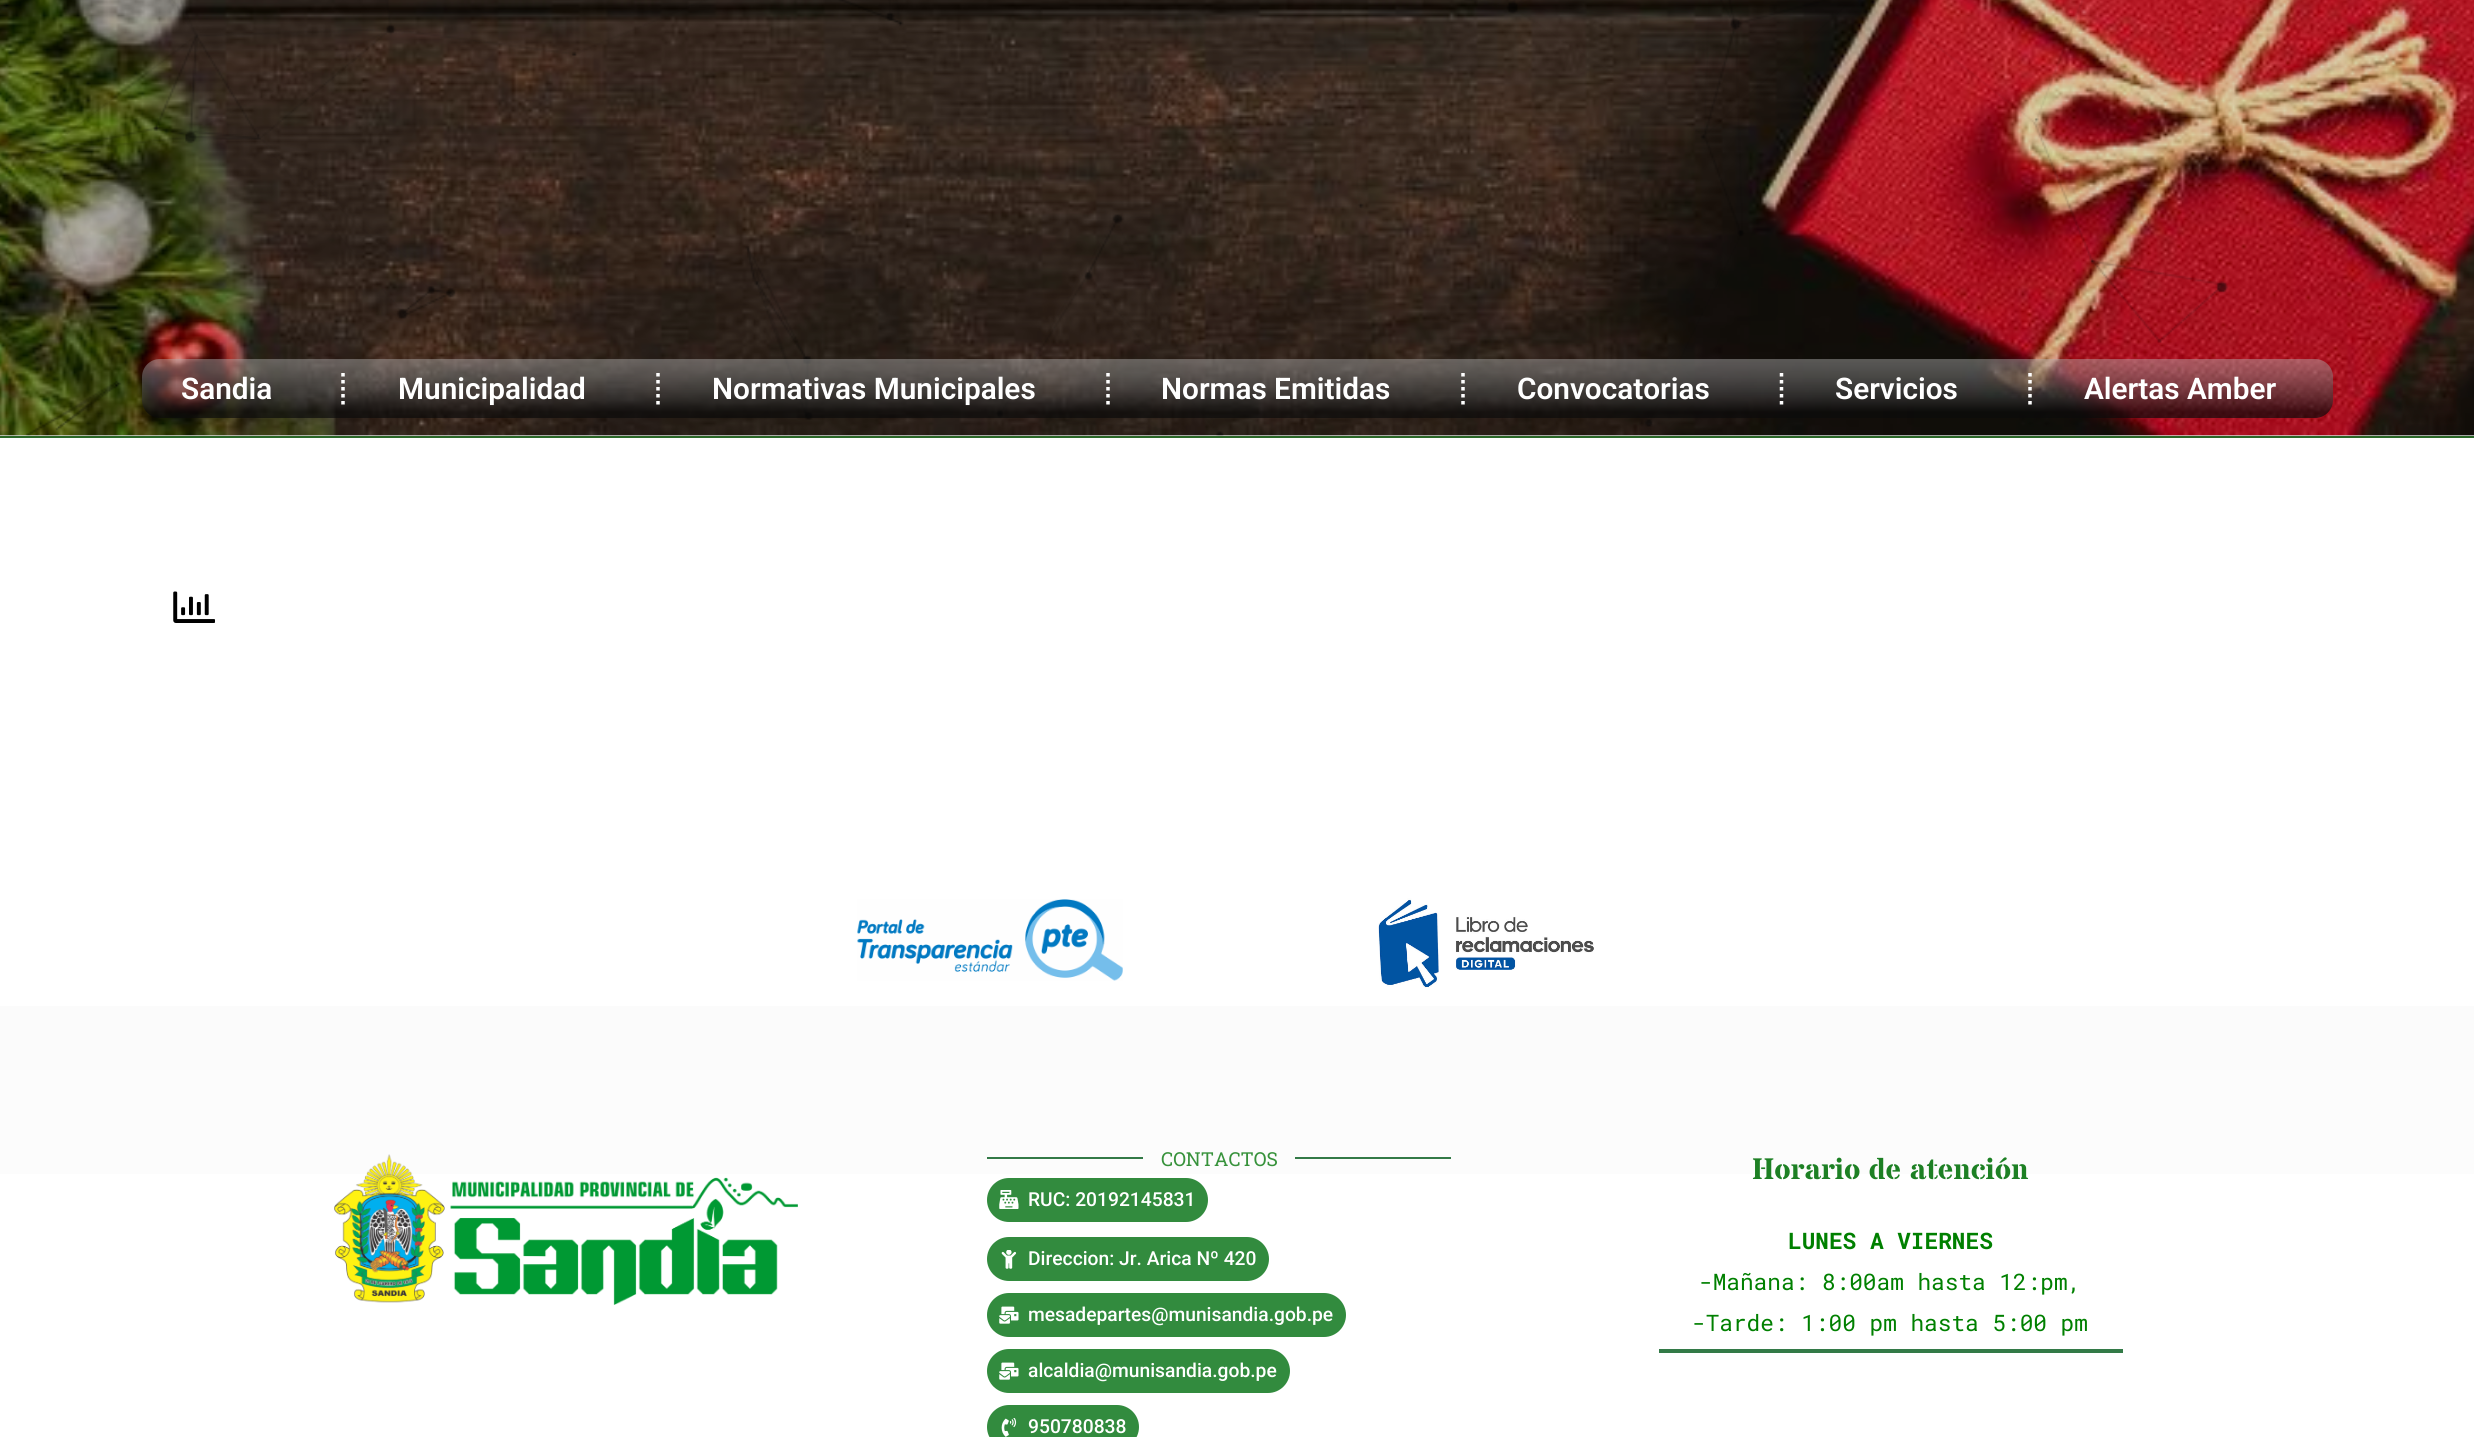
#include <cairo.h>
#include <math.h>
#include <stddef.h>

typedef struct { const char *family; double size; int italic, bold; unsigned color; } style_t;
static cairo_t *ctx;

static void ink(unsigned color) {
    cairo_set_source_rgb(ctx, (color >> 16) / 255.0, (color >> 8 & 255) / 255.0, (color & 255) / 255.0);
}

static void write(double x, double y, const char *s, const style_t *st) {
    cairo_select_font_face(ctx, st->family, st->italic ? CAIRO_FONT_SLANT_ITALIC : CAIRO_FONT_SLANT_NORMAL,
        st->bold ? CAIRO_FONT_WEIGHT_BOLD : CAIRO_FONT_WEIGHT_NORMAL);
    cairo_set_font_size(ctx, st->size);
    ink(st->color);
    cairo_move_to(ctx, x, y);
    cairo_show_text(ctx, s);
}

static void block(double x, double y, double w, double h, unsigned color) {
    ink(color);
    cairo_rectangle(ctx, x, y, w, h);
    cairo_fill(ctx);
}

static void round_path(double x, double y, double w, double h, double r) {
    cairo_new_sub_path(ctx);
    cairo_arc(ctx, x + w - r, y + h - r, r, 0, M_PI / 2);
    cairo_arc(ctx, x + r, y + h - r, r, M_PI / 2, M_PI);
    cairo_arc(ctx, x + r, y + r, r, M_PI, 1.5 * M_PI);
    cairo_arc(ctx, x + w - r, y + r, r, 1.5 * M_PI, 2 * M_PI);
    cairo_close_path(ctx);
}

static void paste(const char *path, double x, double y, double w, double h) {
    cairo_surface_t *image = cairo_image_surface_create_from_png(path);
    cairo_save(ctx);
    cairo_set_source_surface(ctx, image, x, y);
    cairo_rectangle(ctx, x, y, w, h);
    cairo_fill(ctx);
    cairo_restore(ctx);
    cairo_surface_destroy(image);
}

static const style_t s1 = {"Roboto SemiBold", 29.75, 0, 0, 0xffffff};
static const style_t s2 = {"Roboto Slab", 19.25, 0, 0, 0x37923b};
static const style_t s3 = {"Roboto Medium", 19.25, 0, 0, 0xffffff};
static const style_t s4 = {"Stardos Stencil", 29.75, 0, 1, 0x1d8024};
static const style_t s5 = {"Roboto Mono", 22.75, 0, 1, 0x008000};
static const style_t s6 = {"Roboto Mono", 22.75, 0, 0, 0x008000};

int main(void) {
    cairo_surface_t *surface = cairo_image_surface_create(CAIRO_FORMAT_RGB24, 2474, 1437);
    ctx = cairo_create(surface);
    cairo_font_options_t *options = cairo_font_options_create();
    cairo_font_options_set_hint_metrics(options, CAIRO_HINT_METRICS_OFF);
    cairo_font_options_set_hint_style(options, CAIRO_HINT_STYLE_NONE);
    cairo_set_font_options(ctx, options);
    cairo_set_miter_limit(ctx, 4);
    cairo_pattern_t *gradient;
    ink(0xffffff);
    cairo_paint(ctx);
    block(0, 435, 2474, 1, 0xd9d9d9);
    block(0, 436, 2474, 2, 0x2a6728);
    paste("pic1.png", 0, 0, 2474, 436);
    paste("pic2.png", 26, 0, 2203, 436);
    gradient = cairo_pattern_create_linear(1237, 418, 1237, 359);
    cairo_pattern_add_color_stop_rgba(gradient, 0.1, 0.039, 0.039, 0.039, 0.68);
    cairo_pattern_add_color_stop_rgba(gradient, 1, 0.702, 0.702, 0.702, 0.45);
    cairo_set_source(ctx, gradient);
    cairo_pattern_destroy(gradient);
    round_path(142, 359, 2191, 59, 18);
    cairo_fill(ctx);
    write(181, 399, "Sandia", &s1);
    cairo_new_path(ctx);
    cairo_move_to(ctx, 343, 373);
    cairo_line_to(ctx, 343, 406);
    cairo_set_line_width(ctx, 3.5);
    cairo_set_dash(ctx, (double[]){3.5, 3.5}, 2, 0);
    cairo_stroke(ctx);
    write(398, 399, "Municipalidad", &s1);
    cairo_new_path(ctx);
    cairo_move_to(ctx, 658, 373);
    cairo_line_to(ctx, 658, 406);
    cairo_stroke(ctx);
    write(712, 399, "Normativas Municipales", &s1);
    cairo_new_path(ctx);
    cairo_move_to(ctx, 1108, 373);
    cairo_line_to(ctx, 1108, 406);
    cairo_stroke(ctx);
    write(1161, 399, "Normas Emitidas", &s1);
    cairo_new_path(ctx);
    cairo_move_to(ctx, 1463, 373);
    cairo_line_to(ctx, 1463, 406);
    cairo_stroke(ctx);
    write(1517, 399, "Convocatorias", &s1);
    cairo_new_path(ctx);
    cairo_move_to(ctx, 1781.5, 373);
    cairo_line_to(ctx, 1781.5, 406);
    cairo_stroke(ctx);
    write(1835, 399, "Servicios", &s1);
    cairo_new_path(ctx);
    cairo_move_to(ctx, 2030, 373);
    cairo_line_to(ctx, 2030, 406);
    cairo_stroke(ctx);
    write(2084, 399, "Alertas Amber", &s1);
    paste("pic3.png", 173, 591, 42, 32);
    paste("pic4.png", 857, 899, 266, 82);
    paste("pic5.png", 1378, 898, 216, 90);
    gradient = cairo_pattern_create_linear(1237, 1006, 1237, 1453);
    cairo_pattern_add_color_stop_rgba(gradient, 0, 0.984, 0.984, 0.984, 1);
    cairo_pattern_add_color_stop_rgba(gradient, 1, 1, 1, 1, 1);
    cairo_set_source(ctx, gradient);
    cairo_pattern_destroy(gradient);
    cairo_rectangle(ctx, 0, 1006, 2474, 168);
    cairo_fill(ctx);
    paste("pic6.png", 334, 1154, 464, 151);
    block(987, 1157, 156, 2, 0x337a47);
    write(1161, 1166, "CONTACTOS", &s2);
    block(1295, 1157, 156, 2, 0x337a47);
    ink(0x328b3e);
    round_path(987, 1178, 221, 44, 22);
    cairo_fill(ctx);
    paste("pic7.png", 999, 1190, 20, 19);
    write(1028, 1206, "RUC: 20192145831", &s3);
    ink(0x328b3e);
    round_path(987, 1237, 282, 44, 22);
    cairo_fill(ctx);
    paste("pic8.png", 1001, 1250, 16, 19);
    write(1028, 1265, "Direccion: Jr. Arica Nº 420", &s3);
    ink(0x328b3e);
    round_path(987, 1293, 359, 44, 22);
    cairo_fill(ctx);
    paste("pic9.png", 999, 1306, 20, 18);
    write(1028, 1321, "mesadepartes@munisandia.gob.pe", &s3);
    ink(0x328b3e);
    round_path(987, 1349, 303, 44, 22);
    cairo_fill(ctx);
    paste("pic9.png", 999, 1362, 20, 18);
    write(1028, 1377, "alcaldia@munisandia.gob.pe", &s3);
    ink(0x328b3e);
    round_path(987, 1405, 152, 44, 22);
    cairo_fill(ctx);
    paste("pic10.png", 1001, 1418, 16, 19);
    write(1028, 1433, "950780838", &s3);
    write(1752, 1179, "Horario de atención", &s4);
    write(1788, 1249, "LUNES A VIERNES", &s5);
    write(1699, 1290, "-Mañana: 8:00am hasta 12:pm,", &s6);
    write(1692, 1331, "-Tarde: 1:00 pm hasta 5:00 pm", &s6);
    block(1659, 1349, 464, 4, 0x337a47);
    cairo_surface_write_to_png(surface, "screenshot.png");
    cairo_font_options_destroy(options);
    cairo_destroy(ctx);
    cairo_surface_destroy(surface);
    return 0;
}
